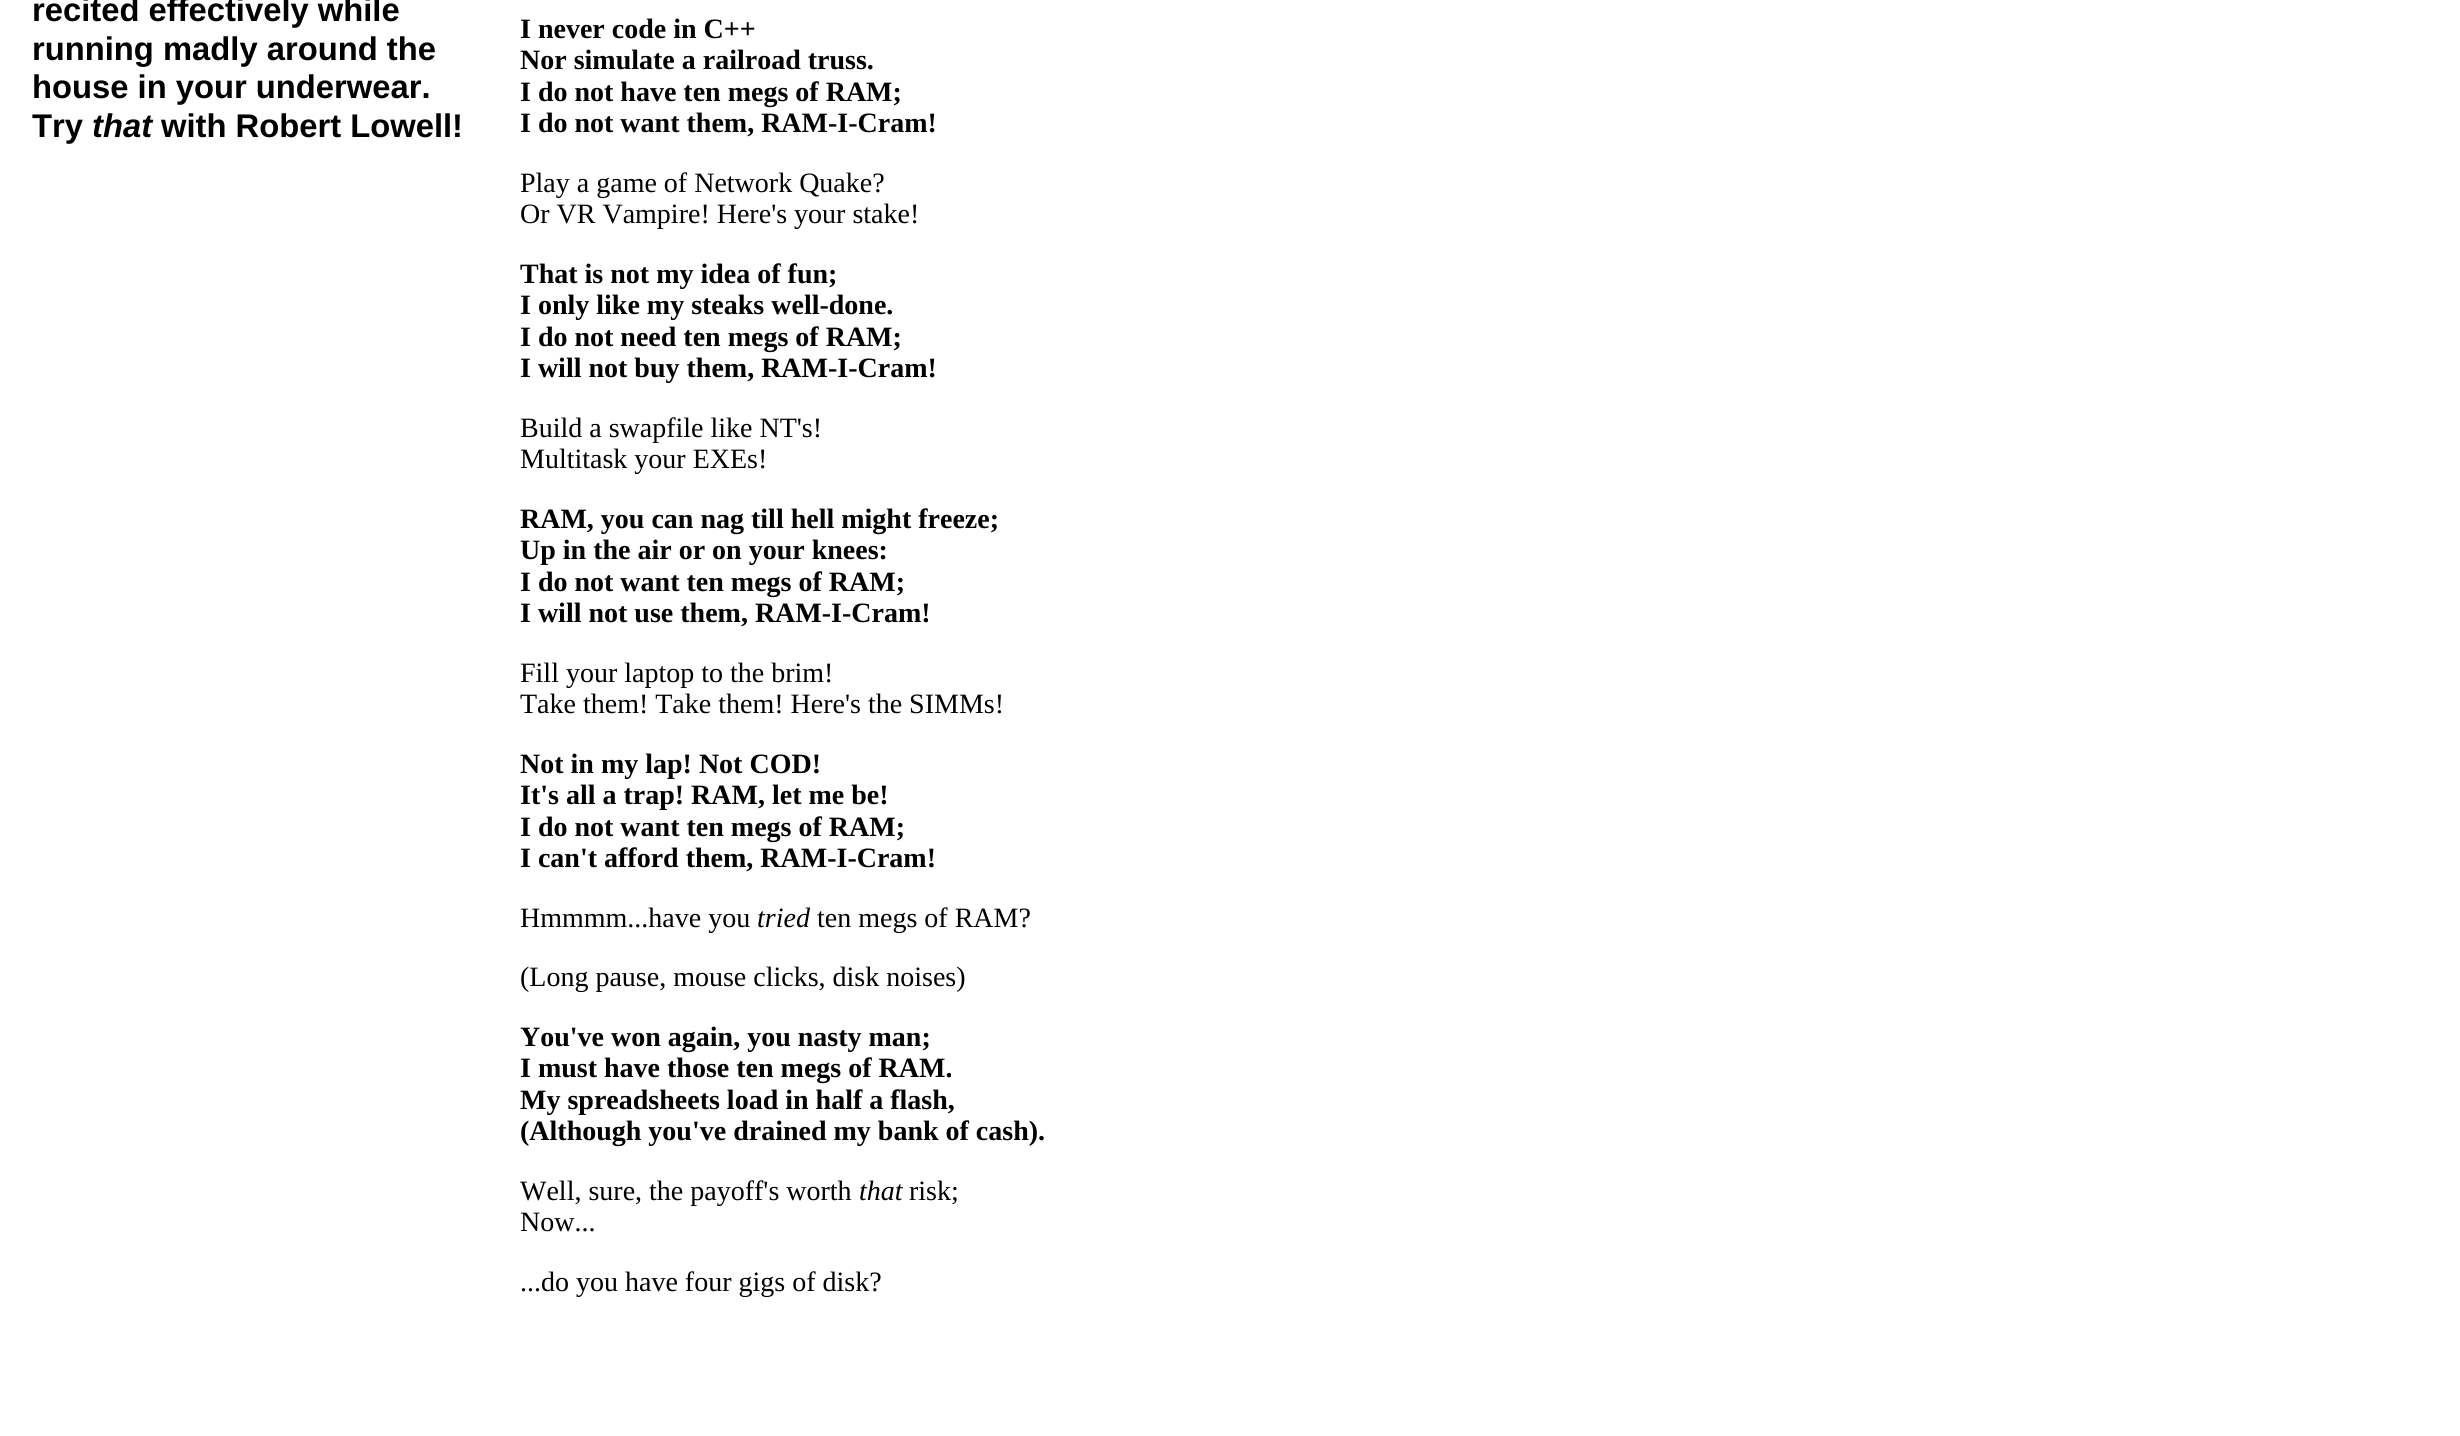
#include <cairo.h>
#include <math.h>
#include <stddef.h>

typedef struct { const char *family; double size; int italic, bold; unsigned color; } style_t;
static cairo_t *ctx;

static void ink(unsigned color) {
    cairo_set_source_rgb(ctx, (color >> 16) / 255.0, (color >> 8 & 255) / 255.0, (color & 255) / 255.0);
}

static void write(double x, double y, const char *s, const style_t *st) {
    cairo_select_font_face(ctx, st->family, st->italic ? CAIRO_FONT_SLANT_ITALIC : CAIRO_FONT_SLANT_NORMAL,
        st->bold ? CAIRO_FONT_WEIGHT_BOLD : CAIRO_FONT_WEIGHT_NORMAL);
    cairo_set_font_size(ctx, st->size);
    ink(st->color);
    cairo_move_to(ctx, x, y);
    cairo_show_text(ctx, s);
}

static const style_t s1 = {"Liberation Sans", 32.75, 0, 1, 0x000000};
static const style_t s2 = {"Liberation Sans", 32.75, 1, 1, 0x000000};
static const style_t s3 = {"Liberation Serif", 28, 0, 1, 0x000000};
static const style_t s4 = {"Liberation Serif", 28, 0, 0, 0x000000};
static const style_t s5 = {"Liberation Serif", 28, 1, 0, 0x000000};

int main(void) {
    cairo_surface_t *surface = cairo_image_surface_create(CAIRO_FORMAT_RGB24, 2460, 1436);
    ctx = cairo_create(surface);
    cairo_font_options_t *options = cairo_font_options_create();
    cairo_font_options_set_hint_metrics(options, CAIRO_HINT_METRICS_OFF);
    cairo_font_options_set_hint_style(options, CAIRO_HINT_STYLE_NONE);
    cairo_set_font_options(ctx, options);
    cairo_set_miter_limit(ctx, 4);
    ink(0xffffff);
    cairo_paint(ctx);
    write(32, 21, "recited effectively while", &s1);
    write(32, 60, "running madly around the", &s1);
    write(32, 98, "house in your underwear.", &s1);
    write(32, 137, "Try", &s1);
    write(92, 137, "that", &s2);
    write(161, 137, "with Robert Lowell!", &s1);
    write(520, 38, "I never code in C++", &s3);
    write(520, 69, "Nor simulate a railroad truss.", &s3);
    write(520, 101, "I do not have ten megs of RAM;", &s3);
    write(520, 132, "I do not want them, RAM-I-Cram!", &s3);
    write(520, 192, "Play a game of Network Quake?", &s4);
    write(520, 223, "Or VR Vampire! Here's your stake!", &s4);
    write(520, 283, "That is not my idea of fun;", &s3);
    write(520, 314, "I only like my steaks well-done.", &s3);
    write(520, 346, "I do not need ten megs of RAM;", &s3);
    write(520, 377, "I will not buy them, RAM-I-Cram!", &s3);
    write(520, 437, "Build a swapfile like NT's!", &s4);
    write(520, 468, "Multitask your EXEs!", &s4);
    write(520, 528, "RAM, you can nag till hell might freeze;", &s3);
    write(520, 559, "Up in the air or on your knees:", &s3);
    write(520, 591, "I do not want ten megs of RAM;", &s3);
    write(520, 622, "I will not use them, RAM-I-Cram!", &s3);
    write(520, 682, "Fill your laptop to the brim!", &s4);
    write(520, 713, "Take them! Take them! Here's the SIMMs!", &s4);
    write(520, 773, "Not in my lap! Not COD!", &s3);
    write(520, 804, "It's all a trap! RAM, let me be!", &s3);
    write(520, 836, "I do not want ten megs of RAM;", &s3);
    write(520, 867, "I can't afford them, RAM-I-Cram!", &s3);
    write(520, 927, "Hmmmm...have you", &s4);
    write(757, 927, "tried", &s5);
    write(817, 927, "ten megs of RAM?", &s4);
    write(520, 986, "(Long pause, mouse clicks, disk noises)", &s4);
    write(520, 1046, "You've won again, you nasty man;", &s3);
    write(520, 1077, "I must have those ten megs of RAM.", &s3);
    write(520, 1109, "My spreadsheets load in half a flash,", &s3);
    write(520, 1140, "(Although you've drained my bank of cash).", &s3);
    write(520, 1200, "Well, sure, the payoff's worth", &s4);
    write(859, 1200, "that", &s5);
    write(909, 1200, "risk;", &s4);
    write(520, 1231, "Now...", &s4);
    write(520, 1291, "...do you have four gigs of disk?", &s4);
    cairo_surface_write_to_png(surface, "screenshot.png");
    cairo_font_options_destroy(options);
    cairo_destroy(ctx);
    cairo_surface_destroy(surface);
    return 0;
}
